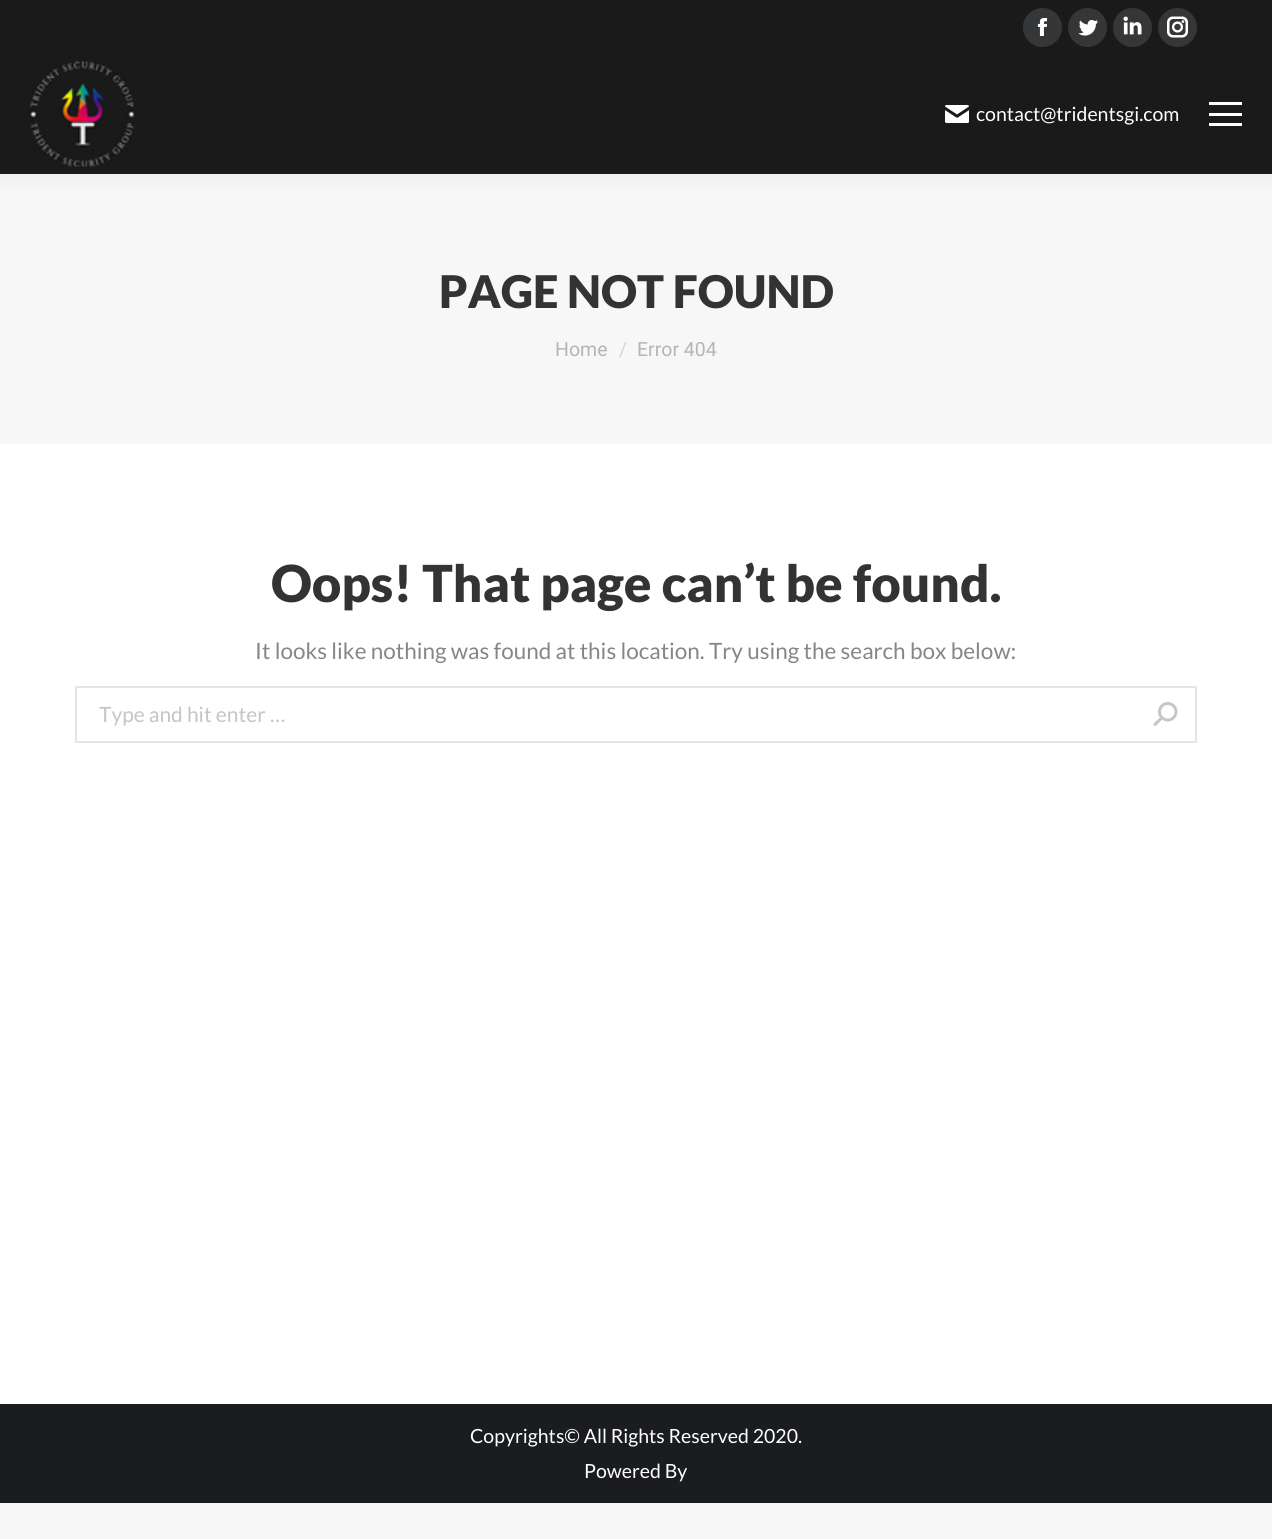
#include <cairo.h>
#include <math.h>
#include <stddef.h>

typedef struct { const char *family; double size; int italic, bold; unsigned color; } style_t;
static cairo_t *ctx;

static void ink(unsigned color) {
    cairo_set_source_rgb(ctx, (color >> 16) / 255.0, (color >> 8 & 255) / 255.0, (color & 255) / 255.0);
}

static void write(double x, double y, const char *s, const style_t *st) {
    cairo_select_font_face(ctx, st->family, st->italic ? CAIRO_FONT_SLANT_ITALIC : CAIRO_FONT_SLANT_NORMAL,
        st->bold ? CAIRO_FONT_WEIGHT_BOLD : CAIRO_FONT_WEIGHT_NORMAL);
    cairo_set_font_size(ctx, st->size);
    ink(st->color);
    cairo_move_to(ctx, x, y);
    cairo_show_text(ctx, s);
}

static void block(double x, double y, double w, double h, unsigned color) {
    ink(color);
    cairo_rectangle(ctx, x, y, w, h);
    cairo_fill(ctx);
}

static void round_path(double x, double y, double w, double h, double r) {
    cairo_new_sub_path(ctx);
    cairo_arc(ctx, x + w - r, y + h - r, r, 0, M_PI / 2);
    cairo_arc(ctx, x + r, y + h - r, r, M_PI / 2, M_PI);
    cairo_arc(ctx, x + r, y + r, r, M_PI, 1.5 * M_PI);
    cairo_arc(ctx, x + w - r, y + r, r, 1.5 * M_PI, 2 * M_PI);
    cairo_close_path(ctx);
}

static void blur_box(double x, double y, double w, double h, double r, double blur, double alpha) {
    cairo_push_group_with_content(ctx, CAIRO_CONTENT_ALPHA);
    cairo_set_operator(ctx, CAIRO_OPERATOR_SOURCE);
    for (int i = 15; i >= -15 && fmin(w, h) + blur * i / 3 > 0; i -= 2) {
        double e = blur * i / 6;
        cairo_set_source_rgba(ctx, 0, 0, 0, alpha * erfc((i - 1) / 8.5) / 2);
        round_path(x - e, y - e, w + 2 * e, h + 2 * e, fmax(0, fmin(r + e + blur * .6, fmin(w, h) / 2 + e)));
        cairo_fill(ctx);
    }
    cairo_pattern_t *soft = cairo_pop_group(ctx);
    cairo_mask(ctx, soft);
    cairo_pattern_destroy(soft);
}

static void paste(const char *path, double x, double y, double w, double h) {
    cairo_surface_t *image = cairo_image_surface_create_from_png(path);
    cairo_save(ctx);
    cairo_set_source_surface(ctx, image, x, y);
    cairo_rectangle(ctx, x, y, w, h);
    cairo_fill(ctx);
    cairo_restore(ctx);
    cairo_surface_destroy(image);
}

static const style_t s1 = {"Lato", 19.5, 0, 0, 0xffffff};
static const style_t s2 = {"Lato Black", 45, 0, 0, 0x333333};
static const style_t s3 = {"Roboto", 19.5, 0, 0, 0xb4b5bb};
static const style_t s4 = {"Roboto", 19.5, 0, 0, 0xd6d6d9};
static const style_t s5 = {"Lato Black", 51, 0, 0, 0x333333};
static const style_t s6 = {"Lato", 22.5, 0, 0, 0x85868c};
static const style_t s7 = {"Lato", 21, 0, 0, 0xc4c5c9};

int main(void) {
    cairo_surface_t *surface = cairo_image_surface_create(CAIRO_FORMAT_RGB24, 1272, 1539);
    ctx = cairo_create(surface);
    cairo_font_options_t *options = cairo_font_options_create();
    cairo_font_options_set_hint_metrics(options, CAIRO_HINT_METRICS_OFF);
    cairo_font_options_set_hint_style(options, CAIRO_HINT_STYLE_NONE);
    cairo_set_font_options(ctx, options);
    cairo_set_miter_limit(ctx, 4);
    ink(0xf7f7f7);
    cairo_paint(ctx);
    block(0, 444, 1272, 960, 0xffffff);
    ink(0x000000);
    blur_box(-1, -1, 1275, 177, 0, 11, 0.07);
    block(0, 0, 1272, 174, 0x1a1a1a);
    ink(0x353637);
    cairo_arc(ctx, 1042.5, 27.5, 19.5, 0, 2 * M_PI);
    cairo_fill(ctx);
    paste("pic1.png", 1037, 18, 11, 18);
    cairo_arc(ctx, 1087.5, 27.5, 19.5, 0, 2 * M_PI);
    cairo_fill(ctx);
    paste("pic2.png", 1078, 19, 20, 17);
    cairo_arc(ctx, 1132.5, 27.5, 19.5, 0, 2 * M_PI);
    cairo_fill(ctx);
    paste("pic3.png", 1123, 16, 19, 19);
    cairo_arc(ctx, 1177.5, 27.5, 19.5, 0, 2 * M_PI);
    cairo_fill(ctx);
    paste("pic4.png", 1167, 16, 21, 22);
    paste("pic5.png", 30, 61, 104, 106);
    paste("pic6.png", 945, 105, 24, 18);
    write(976, 121, "contact@tridentsgi.com", &s1);
    block(1209, 113, 33, 3, 0xffffff);
    block(1209, 102, 33, 3, 0xffffff);
    block(1209, 123, 33, 3, 0xffffff);
    write(439, 308, "PAGE NOT FOUND", &s2);
    write(555, 356, "Home", &s3);
    write(619, 356, "/", &s4);
    write(637, 356, "Error 404", &s3);
    write(271, 602, "Oops! That page can’t be found.", &s5);
    write(255, 659, "It looks like nothing was found at this location. Try using the search box below:", &s6);
    round_path(76, 687, 1120, 55, 0.5);
    ink(0xe5e5e5);
    cairo_stroke(ctx);
    write(99, 722, "Type and hit enter …", &s7);
    paste("pic7.png", 1153, 702, 25, 24);
    block(0, 1404, 1272, 99, 0x1a1c20);
    write(470, 1443, "Copyrights© All Rights Reserved 2020.", &s1);
    write(584, 1478, "Powered By", &s1);
    cairo_surface_write_to_png(surface, "screenshot.png");
    cairo_font_options_destroy(options);
    cairo_destroy(ctx);
    cairo_surface_destroy(surface);
    return 0;
}
